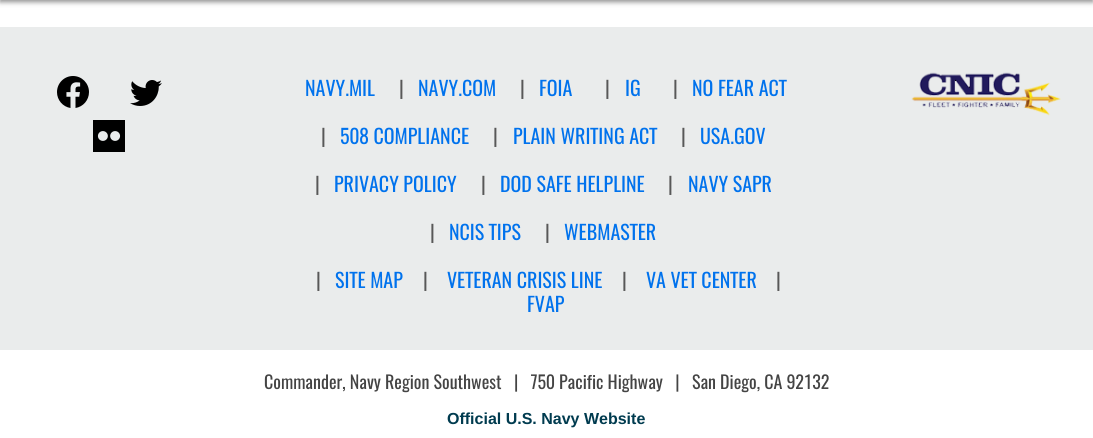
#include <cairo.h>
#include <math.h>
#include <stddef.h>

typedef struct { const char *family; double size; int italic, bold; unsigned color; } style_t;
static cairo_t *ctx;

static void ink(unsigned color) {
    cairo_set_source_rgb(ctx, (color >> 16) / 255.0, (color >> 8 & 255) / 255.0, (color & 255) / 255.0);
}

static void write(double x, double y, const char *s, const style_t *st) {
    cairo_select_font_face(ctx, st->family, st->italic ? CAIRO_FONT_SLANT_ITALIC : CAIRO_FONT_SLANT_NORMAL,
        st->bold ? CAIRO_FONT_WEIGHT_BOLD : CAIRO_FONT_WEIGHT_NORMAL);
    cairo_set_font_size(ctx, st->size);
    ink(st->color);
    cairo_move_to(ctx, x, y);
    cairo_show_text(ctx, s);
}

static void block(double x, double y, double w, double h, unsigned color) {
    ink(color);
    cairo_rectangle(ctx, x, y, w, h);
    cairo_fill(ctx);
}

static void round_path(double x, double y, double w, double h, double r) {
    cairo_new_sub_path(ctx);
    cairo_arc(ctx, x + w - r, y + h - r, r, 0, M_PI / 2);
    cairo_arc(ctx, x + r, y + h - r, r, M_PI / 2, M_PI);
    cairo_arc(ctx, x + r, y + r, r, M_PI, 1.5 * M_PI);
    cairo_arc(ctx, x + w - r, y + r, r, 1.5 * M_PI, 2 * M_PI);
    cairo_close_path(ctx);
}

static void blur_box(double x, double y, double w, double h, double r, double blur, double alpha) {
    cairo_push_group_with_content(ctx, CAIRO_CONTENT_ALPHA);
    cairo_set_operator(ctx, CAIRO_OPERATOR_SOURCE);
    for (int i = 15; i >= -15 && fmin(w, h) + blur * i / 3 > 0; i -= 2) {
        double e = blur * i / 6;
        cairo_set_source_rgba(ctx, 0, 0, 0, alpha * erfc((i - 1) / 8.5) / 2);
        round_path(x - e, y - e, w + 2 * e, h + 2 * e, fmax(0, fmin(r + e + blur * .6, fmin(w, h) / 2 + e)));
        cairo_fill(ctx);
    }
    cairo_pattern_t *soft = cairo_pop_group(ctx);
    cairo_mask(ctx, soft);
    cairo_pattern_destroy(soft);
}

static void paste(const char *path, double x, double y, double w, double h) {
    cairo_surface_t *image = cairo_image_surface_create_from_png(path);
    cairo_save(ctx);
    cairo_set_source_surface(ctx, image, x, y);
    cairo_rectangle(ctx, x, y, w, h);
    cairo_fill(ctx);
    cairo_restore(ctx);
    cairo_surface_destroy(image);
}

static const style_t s1 = {"Oswald", 20, 0, 0, 0x0072ed};
static const style_t s2 = {"Oswald", 20, 0, 0, 0x585858};
static const style_t s3 = {"Oswald", 18, 0, 0, 0x444444};
static const style_t s4 = {"Liberation Sans", 16, 0, 1, 0x003b4f};

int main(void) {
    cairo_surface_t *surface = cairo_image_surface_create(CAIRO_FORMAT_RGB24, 1093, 438);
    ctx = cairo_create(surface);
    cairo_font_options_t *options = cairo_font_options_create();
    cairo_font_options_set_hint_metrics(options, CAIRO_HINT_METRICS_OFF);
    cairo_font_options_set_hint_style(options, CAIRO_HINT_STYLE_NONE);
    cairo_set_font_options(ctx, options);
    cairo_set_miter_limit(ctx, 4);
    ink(0xffffff);
    cairo_paint(ctx);
    ink(0x1a1a1a);
    blur_box(0, -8, 1093, 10, 0, 2.5, 0.5);
    block(0, 27, 1093, 323, 0xeaecec);
    paste("pic1.png", 57, 76, 32, 32);
    paste("pic2.png", 130, 80, 32, 26);
    paste("pic3.png", 93, 120, 32, 32);
    write(305, 96, "NAVY.MIL", &s1);
    write(399, 96, "|", &s2);
    write(418, 96, "NAVY.COM", &s1);
    write(520, 96, "|", &s2);
    write(539, 96, "FOIA", &s1);
    write(605, 96, "|", &s2);
    write(625, 96, "IG", &s1);
    write(673, 96, "|", &s2);
    write(692, 96, "NO FEAR ACT", &s1);
    write(321, 144, "|", &s2);
    write(340, 144, "508 COMPLIANCE", &s1);
    write(493, 144, "|", &s2);
    write(513, 144, "PLAIN WRITING ACT", &s1);
    write(681, 144, "|", &s2);
    write(700, 144, "USA.GOV", &s1);
    write(315, 192, "|", &s2);
    write(334, 192, "PRIVACY POLICY", &s1);
    write(481, 192, "|", &s2);
    write(500, 192, "DOD SAFE HELPLINE", &s1);
    write(668, 192, "|", &s2);
    write(688, 192, "NAVY SAPR", &s1);
    write(430, 240, "|", &s2);
    write(449, 240, "NCIS TIPS", &s1);
    write(545, 240, "|", &s2);
    write(564, 240, "WEBMASTER", &s1);
    write(316, 288, "|", &s2);
    write(335, 288, "SITE MAP", &s1);
    write(423, 288, "|", &s2);
    write(447, 288, "VETERAN CRISIS LINE", &s1);
    write(622, 288, "|", &s2);
    write(646, 288, "VA VET CENTER", &s1);
    write(776, 288, "|", &s2);
    write(527, 312, "FVAP", &s1);
    paste("pic4.png", 911, 72, 150, 44);
    write(264, 389, "Commander, Navy Region Southwest   |   750 Pacific Highway   |   San Diego, CA 92132", &s3);
    write(447, 424, "Official U.S. Navy Website", &s4);
    cairo_surface_write_to_png(surface, "screenshot.png");
    cairo_font_options_destroy(options);
    cairo_destroy(ctx);
    cairo_surface_destroy(surface);
    return 0;
}
